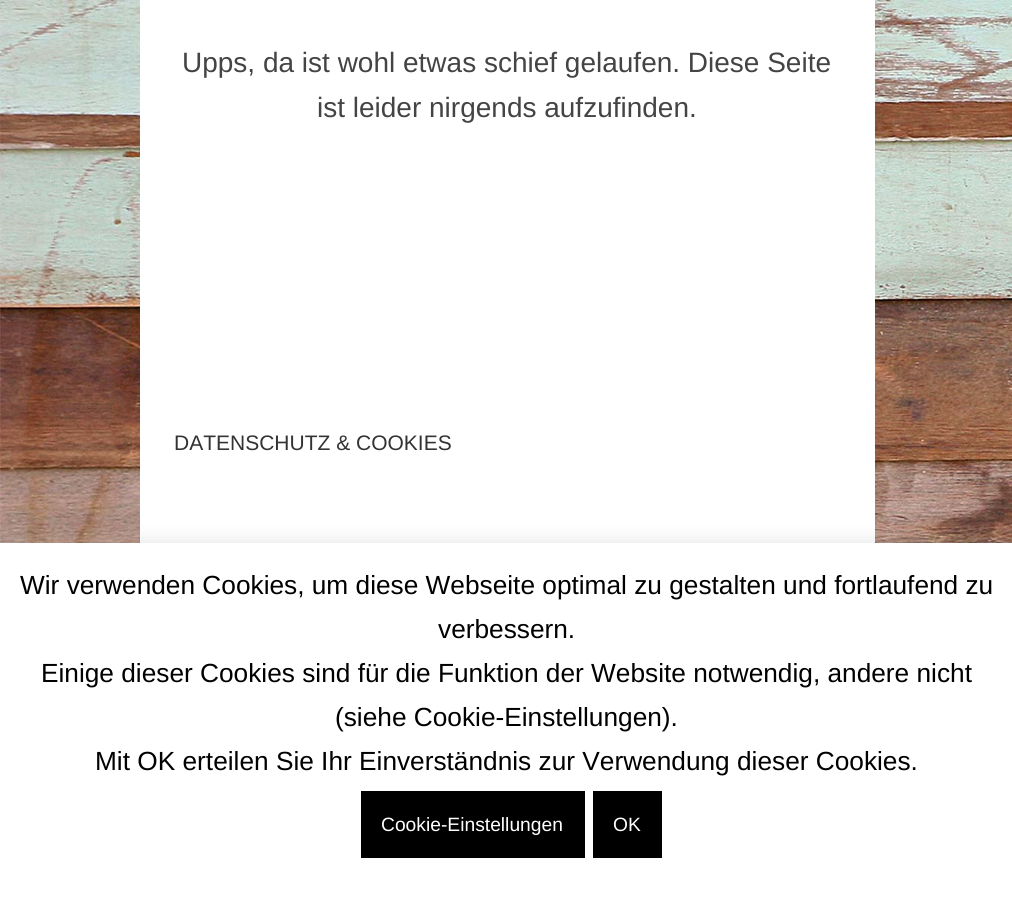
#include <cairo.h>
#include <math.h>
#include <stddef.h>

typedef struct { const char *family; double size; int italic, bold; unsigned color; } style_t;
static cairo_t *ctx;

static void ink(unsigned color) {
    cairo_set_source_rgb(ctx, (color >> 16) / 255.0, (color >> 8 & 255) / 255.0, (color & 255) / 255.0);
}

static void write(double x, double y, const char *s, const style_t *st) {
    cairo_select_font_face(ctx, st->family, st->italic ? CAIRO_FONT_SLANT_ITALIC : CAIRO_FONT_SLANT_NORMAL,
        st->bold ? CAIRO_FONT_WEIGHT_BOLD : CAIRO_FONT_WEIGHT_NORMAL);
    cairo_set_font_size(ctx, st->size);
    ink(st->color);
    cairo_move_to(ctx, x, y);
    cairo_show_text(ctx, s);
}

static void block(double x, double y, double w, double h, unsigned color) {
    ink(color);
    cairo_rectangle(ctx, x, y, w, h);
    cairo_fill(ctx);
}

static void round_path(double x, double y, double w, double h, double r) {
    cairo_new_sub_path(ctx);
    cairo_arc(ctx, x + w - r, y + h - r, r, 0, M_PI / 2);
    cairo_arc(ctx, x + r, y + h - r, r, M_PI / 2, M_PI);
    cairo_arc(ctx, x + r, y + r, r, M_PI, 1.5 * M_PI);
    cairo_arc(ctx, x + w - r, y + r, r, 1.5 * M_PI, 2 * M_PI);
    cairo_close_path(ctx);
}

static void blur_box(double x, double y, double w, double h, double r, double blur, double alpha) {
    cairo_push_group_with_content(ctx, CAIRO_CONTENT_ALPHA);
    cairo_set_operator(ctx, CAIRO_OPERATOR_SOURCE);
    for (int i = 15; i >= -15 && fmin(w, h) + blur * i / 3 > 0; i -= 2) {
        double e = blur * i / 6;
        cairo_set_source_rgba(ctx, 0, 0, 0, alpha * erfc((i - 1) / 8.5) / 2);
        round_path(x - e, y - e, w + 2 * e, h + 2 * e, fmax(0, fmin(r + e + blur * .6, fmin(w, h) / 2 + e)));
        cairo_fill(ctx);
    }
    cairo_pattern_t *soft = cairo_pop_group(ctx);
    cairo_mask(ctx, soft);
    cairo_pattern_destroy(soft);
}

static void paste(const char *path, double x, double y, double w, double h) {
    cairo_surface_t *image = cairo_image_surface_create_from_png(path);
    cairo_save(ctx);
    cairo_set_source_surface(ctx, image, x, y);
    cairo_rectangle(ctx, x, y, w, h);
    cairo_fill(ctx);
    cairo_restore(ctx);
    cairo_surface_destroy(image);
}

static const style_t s1 = {"Liberation Sans", 28, 0, 0, 0x444444};
static const style_t s2 = {"Liberation Sans", 21, 0, 0, 0x333333};
static const style_t s3 = {"Liberation Sans", 26.25, 0, 0, 0x000000};
static const style_t s4 = {"Liberation Sans", 19.25, 0, 0, 0xffffff};

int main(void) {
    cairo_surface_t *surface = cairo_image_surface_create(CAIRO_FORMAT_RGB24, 1012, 914);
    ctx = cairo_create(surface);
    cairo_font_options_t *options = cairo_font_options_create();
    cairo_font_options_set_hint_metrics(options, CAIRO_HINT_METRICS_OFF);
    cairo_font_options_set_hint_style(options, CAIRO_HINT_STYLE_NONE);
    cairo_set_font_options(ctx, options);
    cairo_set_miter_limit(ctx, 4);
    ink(0xffffff);
    cairo_paint(ctx);
    paste("pic1.png", 0, 0, 1012, 543);
    block(140, 0, 735, 543, 0xffffff);
    write(182, 72, "Upps, da ist wohl etwas schief gelaufen. Diese Seite", &s1);
    write(317, 117, "ist leider nirgends aufzufinden.", &s1);
    write(174, 450, "DATENSCHUTZ & COOKIES", &s2);
    ink(0xacabab);
    blur_box(0, 541, 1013, 373, 0, 9, 0.3);
    block(0, 543, 1012, 371, 0xffffff);
    write(20, 594, "Wir verwenden Cookies, um diese Webseite optimal zu gestalten und fortlaufend zu", &s3);
    write(438, 638, "verbessern.", &s3);
    write(41, 682, "Einige dieser Cookies sind für die Funktion der Website notwendig, andere nicht", &s3);
    write(335, 726, "(siehe Cookie-Einstellungen).", &s3);
    write(95, 770, "Mit OK erteilen Sie Ihr Einverständnis zur Verwendung dieser Cookies.", &s3);
    block(361, 791, 224, 67, 0x000000);
    write(381, 831, "Cookie-Einstellungen", &s4);
    block(593, 791, 69, 67, 0x000000);
    write(613, 831, "OK", &s4);
    cairo_surface_write_to_png(surface, "screenshot.png");
    cairo_font_options_destroy(options);
    cairo_destroy(ctx);
    cairo_surface_destroy(surface);
    return 0;
}
